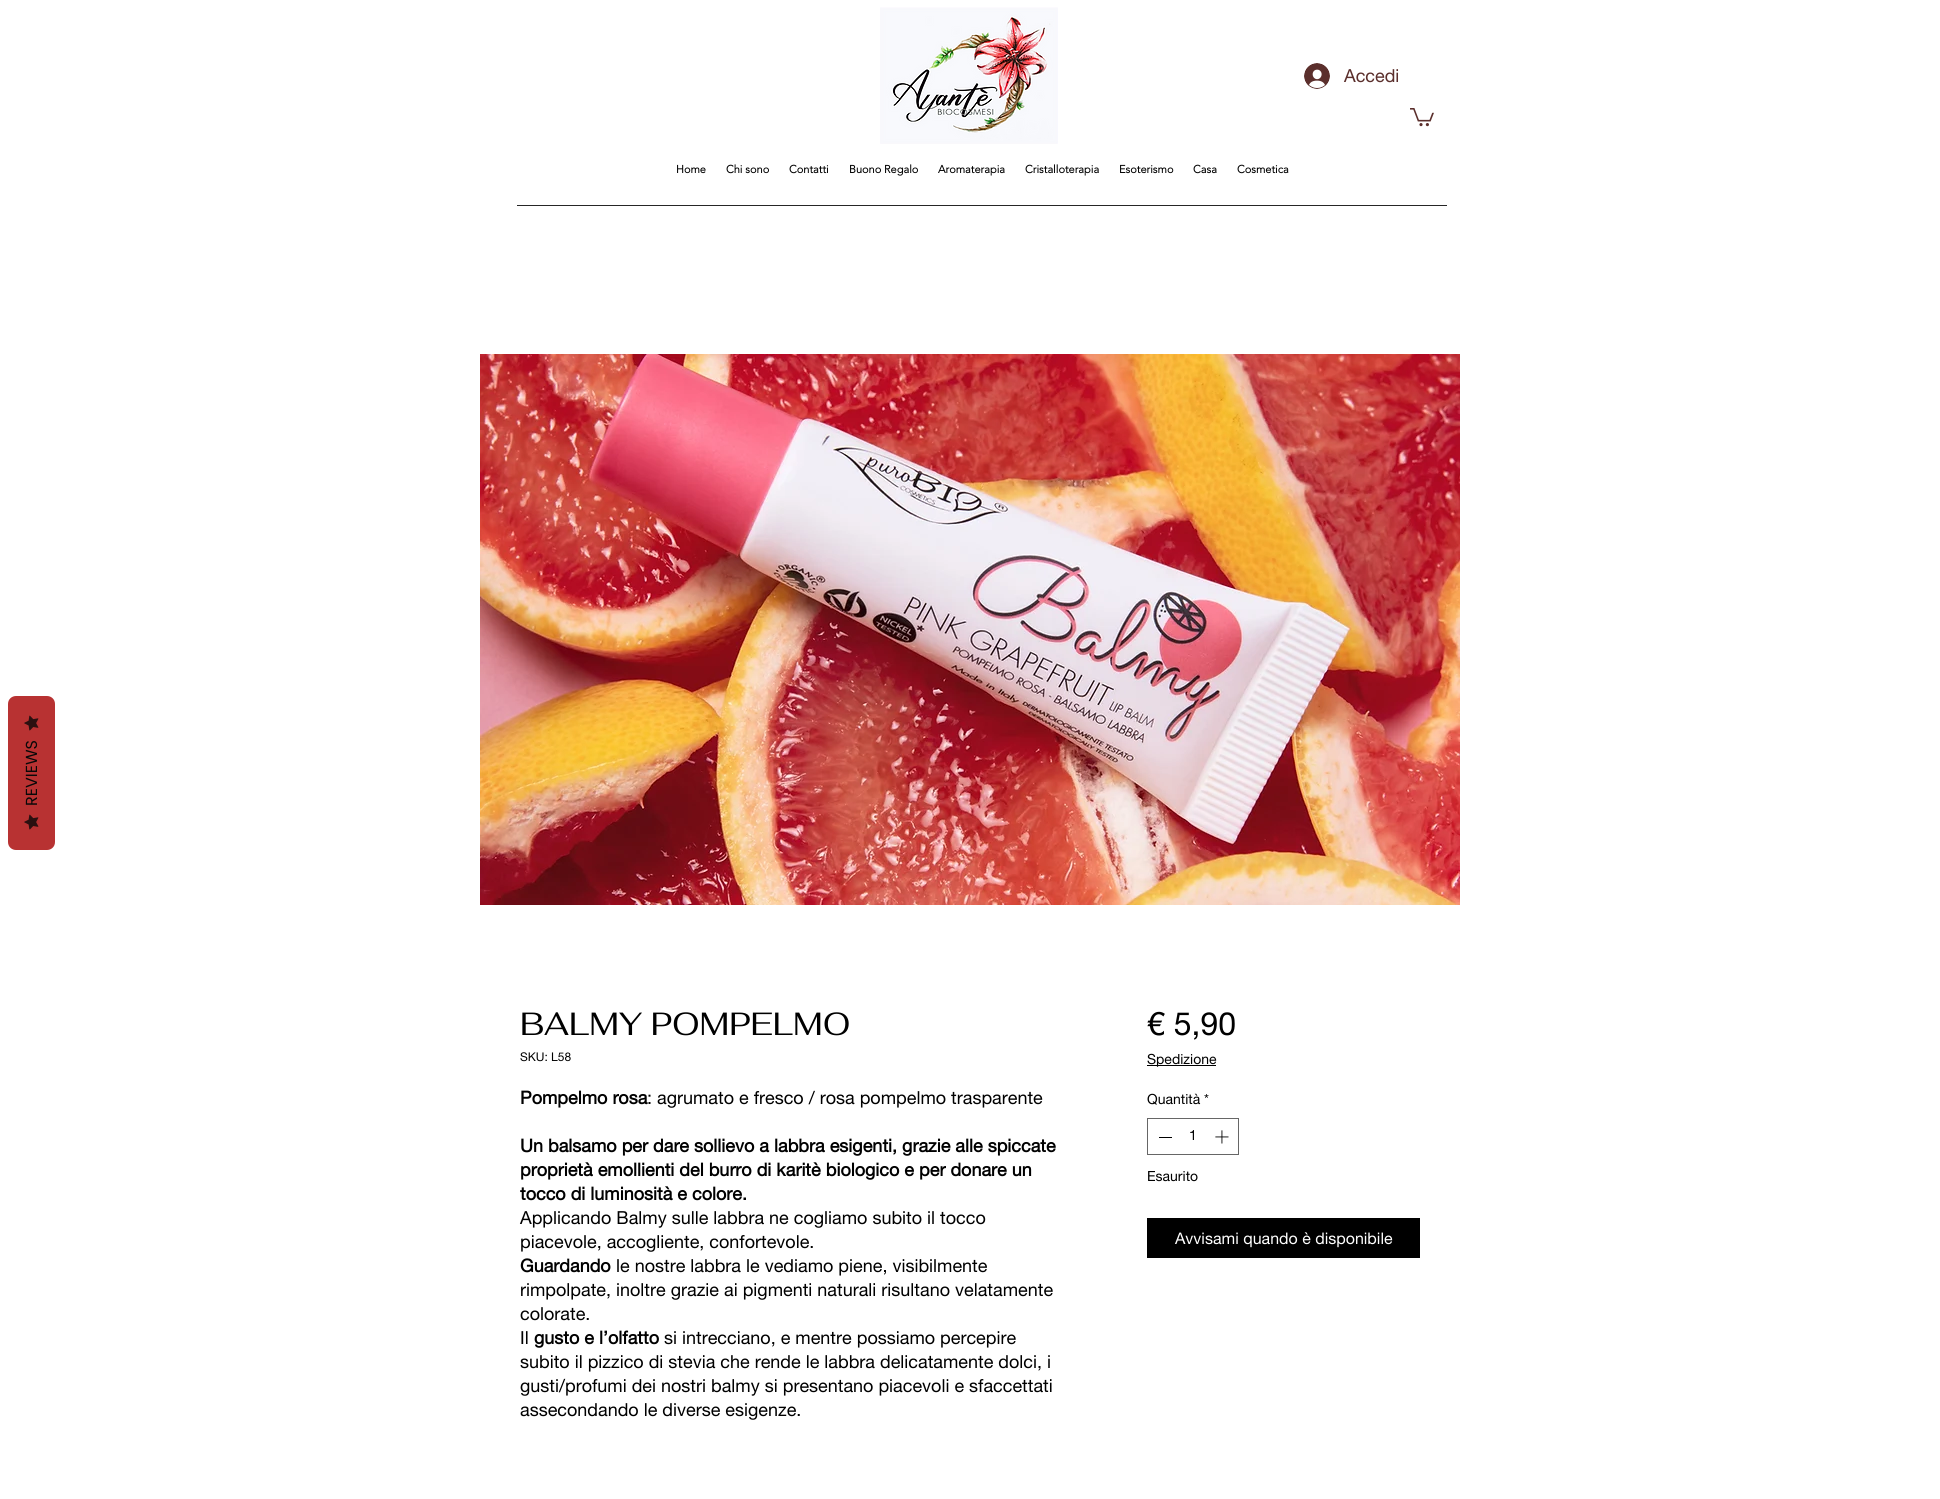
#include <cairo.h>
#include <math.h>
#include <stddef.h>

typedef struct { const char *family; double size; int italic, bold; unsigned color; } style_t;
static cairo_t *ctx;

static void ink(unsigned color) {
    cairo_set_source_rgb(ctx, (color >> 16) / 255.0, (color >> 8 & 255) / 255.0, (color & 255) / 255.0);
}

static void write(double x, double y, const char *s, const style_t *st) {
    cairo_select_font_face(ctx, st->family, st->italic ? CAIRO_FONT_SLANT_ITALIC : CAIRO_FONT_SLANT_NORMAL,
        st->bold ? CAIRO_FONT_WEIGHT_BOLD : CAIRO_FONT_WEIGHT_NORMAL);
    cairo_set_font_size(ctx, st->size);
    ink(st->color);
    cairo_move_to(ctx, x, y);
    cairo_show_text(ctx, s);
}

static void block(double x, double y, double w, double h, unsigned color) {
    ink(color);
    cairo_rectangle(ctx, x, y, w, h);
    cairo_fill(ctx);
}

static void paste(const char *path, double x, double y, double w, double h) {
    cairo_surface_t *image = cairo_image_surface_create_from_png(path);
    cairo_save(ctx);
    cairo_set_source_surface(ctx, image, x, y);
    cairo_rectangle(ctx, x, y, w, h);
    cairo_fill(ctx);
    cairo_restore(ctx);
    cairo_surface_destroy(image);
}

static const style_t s1 = {"Poppins", 16, 0, 0, 0x080808};
static const style_t s2 = {"helvetica neue", 18, 0, 0, 0x5b2f2c};
static const style_t s3 = {"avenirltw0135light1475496", 11, 0, 1, 0x000000};
static const style_t s4 = {"Fahkwang", 32, 0, 0, 0x000000};
static const style_t s5 = {"helvetica neue", 12, 0, 0, 0x000000};
static const style_t s6 = {"helvetica neue", 18, 0, 1, 0x000000};
static const style_t s7 = {"helvetica neue", 18, 0, 0, 0x000000};
static const style_t s8 = {"helvetica neue", 32, 0, 0, 0x000000};
static const style_t s9 = {"helvetica neue", 14, 0, 0, 0x000000};
static const style_t s10 = {"helvetica neue", 16, 0, 0, 0xffffff};

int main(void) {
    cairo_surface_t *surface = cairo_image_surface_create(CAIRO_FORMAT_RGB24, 1940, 1499);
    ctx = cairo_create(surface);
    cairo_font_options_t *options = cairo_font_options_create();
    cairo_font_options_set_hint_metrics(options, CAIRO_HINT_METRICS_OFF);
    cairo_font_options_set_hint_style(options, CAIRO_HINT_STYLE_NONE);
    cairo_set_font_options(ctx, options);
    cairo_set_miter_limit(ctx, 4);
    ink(0xffffff);
    cairo_paint(ctx);
    ink(0xb83232);
    cairo_new_path(ctx);
    cairo_move_to(ctx, 8, 842);
    cairo_line_to(ctx, 8, 704);
    cairo_curve_to(ctx, 8, 699, 12, 696, 16, 696);
    cairo_line_to(ctx, 47, 696);
    cairo_curve_to(ctx, 51, 696, 55, 699, 55, 704);
    cairo_line_to(ctx, 55, 842);
    cairo_curve_to(ctx, 55, 847, 51, 850, 47, 850);
    cairo_line_to(ctx, 16, 850);
    cairo_curve_to(ctx, 12, 850, 8, 847, 8, 842);
    cairo_close_path(ctx);
    cairo_fill(ctx);
    paste("pic1.png", 24, 715, 15, 16);
    cairo_save(ctx);
    cairo_translate(ctx, 37, 806);
    cairo_rotate(ctx, -90 * M_PI / 180);
    write(0, 0, "REVIEWS", &s1);
    cairo_restore(ctx);
    paste("pic1.png", 24, 814, 15, 16);
    paste("pic2.png", 880, 7, 178, 137);
    paste("pic3.png", 1304, 63, 26, 26);
    write(1344, 82, "Accedi", &s2);
    paste("pic4.png", 1410, 108, 24, 19);
    write(676, 173, "Home", &s3);
    write(726, 173, "Chi sono", &s3);
    write(789, 173, "Contatti", &s3);
    write(849, 173, "Buono Regalo", &s3);
    write(938, 173, "Aromaterapia", &s3);
    write(1025, 173, "Cristalloterapia", &s3);
    write(1119, 173, "Esoterismo", &s3);
    write(1193, 173, "Casa", &s3);
    write(1237, 173, "Cosmetica", &s3);
    block(517, 205, 930, 1, 0x262626);
    paste("pic5.png", 480, 354, 980, 551);
    write(520, 1035, "BALMY POMPELMO", &s4);
    write(520, 1061, "SKU: L58", &s5);
    write(520, 1104, "Pompelmo rosa", &s6);
    write(647, 1104, ": agrumato e fresco / rosa pompelmo trasparente", &s7);
    write(520, 1152, "Un balsamo per dare sollievo a labbra esigenti, grazie alle spiccate", &s6);
    write(520, 1176, "proprietà emollienti del burro di karitè biologico e per donare un", &s6);
    write(520, 1200, "tocco di luminosità e colore.", &s6);
    write(520, 1224, "Applicando Balmy sulle labbra ne cogliamo subito il tocco", &s7);
    write(520, 1248, "piacevole, accogliente, confortevole.", &s7);
    write(520, 1272, "Guardando", &s6);
    write(616, 1272, "le nostre labbra le vediamo piene, visibilmente", &s7);
    write(520, 1296, "rimpolpate, inoltre grazie ai pigmenti naturali risultano velatamente", &s7);
    write(520, 1320, "colorate.", &s7);
    write(520, 1344, "Il", &s7);
    write(534, 1344, "gusto e l’olfatto", &s6);
    write(664, 1344, "si intrecciano, e mentre possiamo percepire", &s7);
    write(520, 1368, "subito il pizzico di stevia che rende le labbra delicatamente dolci, i", &s7);
    write(520, 1392, "gusti/profumi dei nostri balmy si presentano piacevoli e sfaccettati", &s7);
    write(520, 1416, "assecondando le diverse esigenze.", &s7);
    write(1147, 1035, "€ 5,90", &s8);
    block(1147, 1065, 69, 1, 0x000000);
    write(1147, 1064, "Spedizione", &s9);
    write(1147, 1104, "Quantità *", &s9);
    cairo_rectangle(ctx, 1147.5, 1118.5, 91, 36);
    ink(0x666666);
    cairo_set_line_width(ctx, 1);
    cairo_stroke(ctx);
    block(1159, 1137, 13, 1, 0x000000);
    write(1189, 1140, "1", &s9);
    paste("pic6.png", 1215, 1130, 14, 14);
    write(1147, 1181, "Esaurito", &s9);
    block(1147, 1218, 273, 40, 0x000000);
    write(1175, 1244, "Avvisami quando è disponibile", &s10);
    cairo_surface_write_to_png(surface, "screenshot.png");
    cairo_font_options_destroy(options);
    cairo_destroy(ctx);
    cairo_surface_destroy(surface);
    return 0;
}
